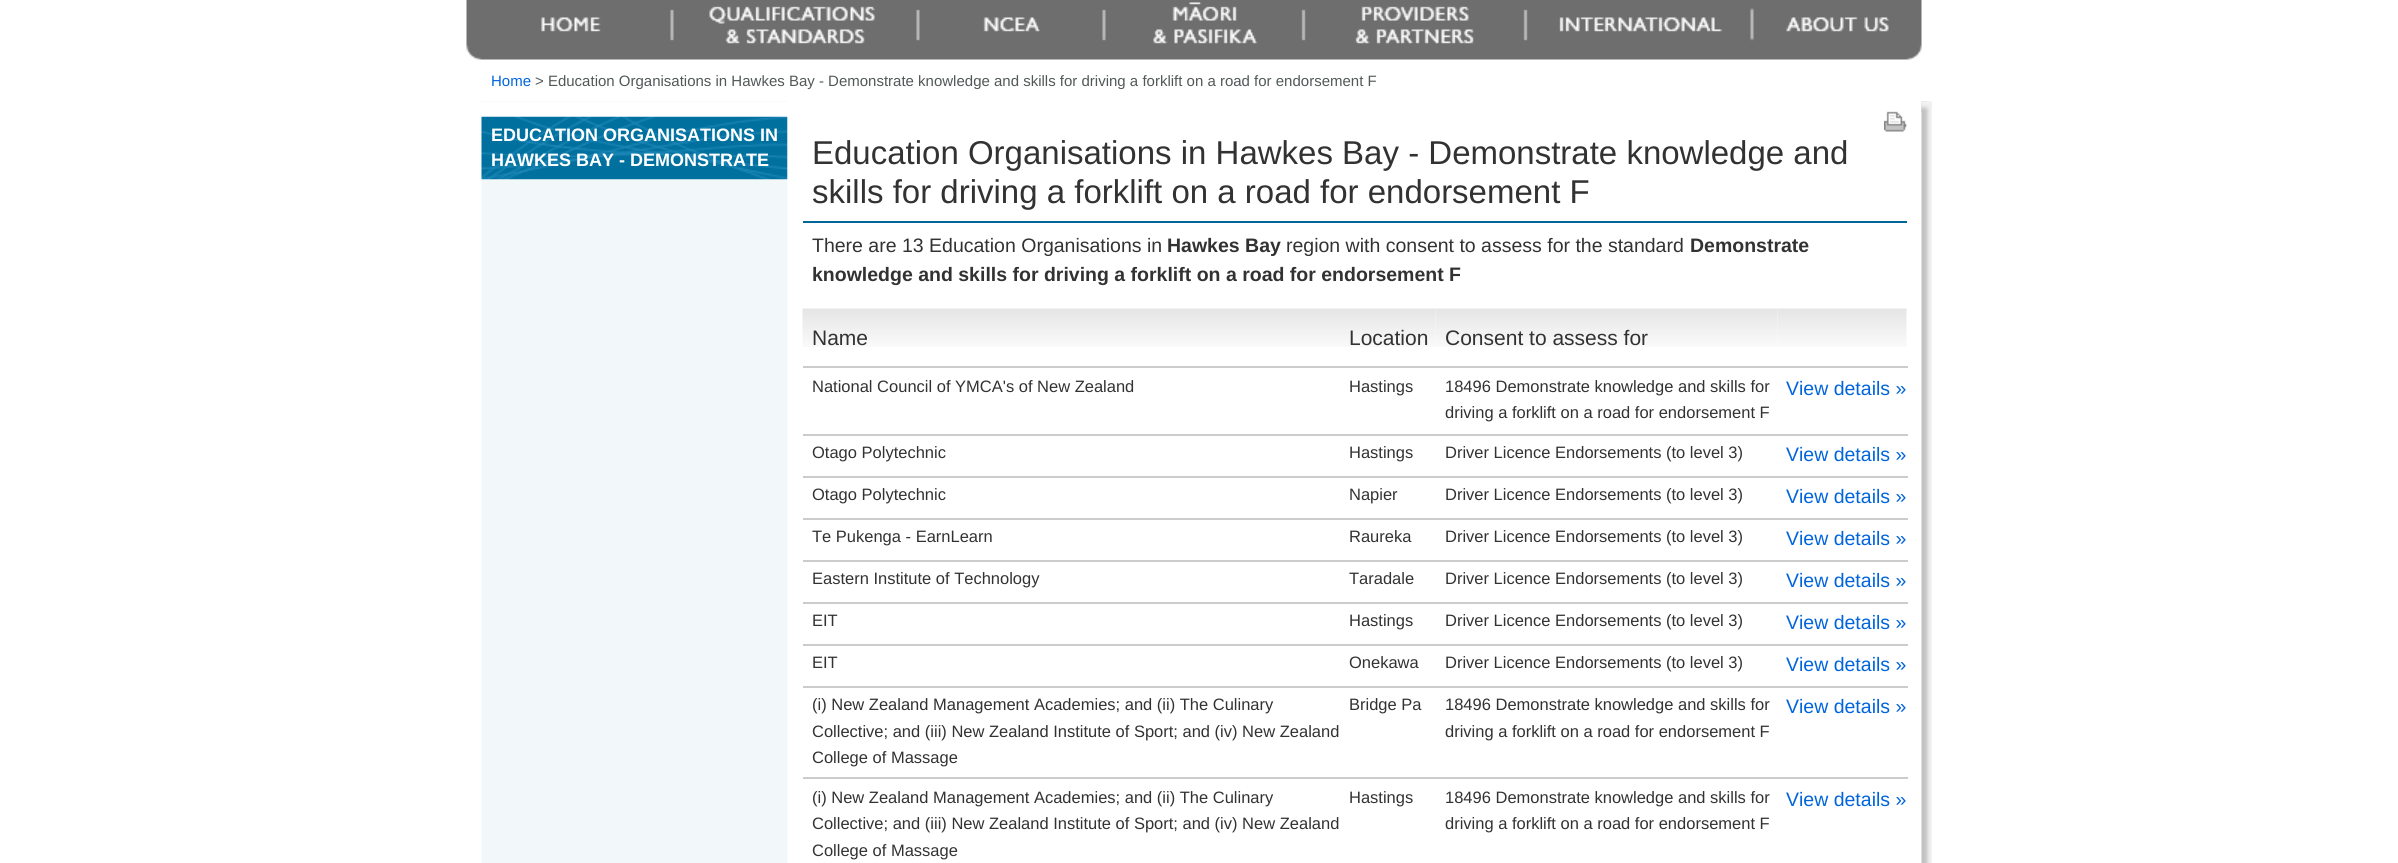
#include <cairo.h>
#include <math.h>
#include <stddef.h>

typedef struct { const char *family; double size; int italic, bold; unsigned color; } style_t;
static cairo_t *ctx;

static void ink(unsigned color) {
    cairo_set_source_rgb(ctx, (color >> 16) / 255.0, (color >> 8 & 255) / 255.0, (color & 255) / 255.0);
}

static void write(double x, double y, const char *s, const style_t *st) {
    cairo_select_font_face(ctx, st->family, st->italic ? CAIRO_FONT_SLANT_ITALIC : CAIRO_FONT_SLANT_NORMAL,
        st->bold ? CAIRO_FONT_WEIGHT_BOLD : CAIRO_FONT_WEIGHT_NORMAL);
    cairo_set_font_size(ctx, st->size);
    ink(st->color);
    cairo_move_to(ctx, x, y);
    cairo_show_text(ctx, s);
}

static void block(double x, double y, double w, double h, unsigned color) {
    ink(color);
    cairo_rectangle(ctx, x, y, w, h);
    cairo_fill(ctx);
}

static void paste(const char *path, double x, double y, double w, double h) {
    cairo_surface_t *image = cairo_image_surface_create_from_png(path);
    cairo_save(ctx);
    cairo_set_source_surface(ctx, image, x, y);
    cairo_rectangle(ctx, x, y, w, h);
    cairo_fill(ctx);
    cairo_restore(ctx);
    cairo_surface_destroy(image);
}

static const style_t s1 = {"Liberation Sans", 15, 0, 0, 0x0064dd};
static const style_t s2 = {"Liberation Sans", 15, 0, 0, 0x525858};
static const style_t s3 = {"Liberation Sans", 18, 0, 1, 0xffffff};
static const style_t s4 = {"Liberation Sans", 33, 0, 0, 0x323232};
static const style_t s5 = {"Liberation Sans", 19.5, 0, 0, 0x323232};
static const style_t s6 = {"Liberation Sans", 19.5, 0, 1, 0x323232};
static const style_t s7 = {"Liberation Sans", 21, 0, 0, 0x323232};
static const style_t s8 = {"Liberation Sans", 16.5, 0, 0, 0x323232};
static const style_t s9 = {"Liberation Sans", 19.5, 0, 0, 0x0064dd};

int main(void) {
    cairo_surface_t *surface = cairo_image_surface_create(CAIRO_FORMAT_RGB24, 2398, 863);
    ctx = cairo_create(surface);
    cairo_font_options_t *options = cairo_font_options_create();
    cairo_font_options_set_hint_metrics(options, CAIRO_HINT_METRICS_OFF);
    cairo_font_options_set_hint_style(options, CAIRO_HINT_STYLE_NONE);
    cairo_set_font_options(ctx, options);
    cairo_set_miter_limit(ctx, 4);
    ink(0xffffff);
    cairo_paint(ctx);
    paste("pic1.png", 466, 0, 1456, 60);
    write(491, 86, "Home", &s1);
    write(535, 86, "> Education Organisations in Hawkes Bay - Demonstrate knowledge and skills for driving a forklift on a road for endorsement F", &s2);
    paste("pic2.png", 481, 101, 1451, 762);
    block(481, 102, 307, 15, 0xffffff);
    paste("pic3.png", 481, 116, 307, 64);
    write(491, 141, "EDUCATION ORGANISATIONS IN", &s3);
    write(491, 166, "HAWKES BAY - DEMONSTRATE", &s3);
    paste("pic4.png", 1921, 101, 9, 11);
    paste("pic5.png", 1884, 111, 23, 21);
    block(803, 221, 1104, 2, 0x006699);
    write(812, 164, "Education Organisations in Hawkes Bay - Demonstrate knowledge and", &s4);
    write(812, 203, "skills for driving a forklift on a road for endorsement F", &s4);
    write(812, 252, "There are 13 Education Organisations in", &s5);
    write(1167, 252, "Hawkes Bay", &s6);
    write(1286, 252, "region with consent to assess for the standard", &s5);
    write(1690, 252, "Demonstrate", &s6);
    write(812, 281, "knowledge and skills for driving a forklift on a road for endorsement F", &s6);
    paste("pic8.png", 1341, 308, 95, 39);
    paste("pic9.png", 1435, 308, 343, 39);
    paste("pic6.png", 1777, 308, 130, 39);
    block(803, 366, 1105, 2, 0xcccccc);
    paste("pic7.png", 802, 308, 539, 39);
    write(812, 345, "Name", &s7);
    write(1349, 345, "Location", &s7);
    write(1445, 345, "Consent to assess for", &s7);
    write(812, 392, "National Council of YMCA's of New Zealand", &s8);
    write(1349, 392, "Hastings", &s8);
    write(1445, 392, "18496 Demonstrate knowledge and skills for", &s8);
    write(1445, 418, "driving a forklift on a road for endorsement F", &s8);
    block(803, 434, 1105, 2, 0xcccccc);
    write(1786, 395, "View details »", &s9);
    write(812, 458, "Otago Polytechnic", &s8);
    write(1349, 458, "Hastings", &s8);
    write(1445, 458, "Driver Licence Endorsements (to level 3)", &s8);
    block(803, 476, 1105, 2, 0xcccccc);
    write(1786, 461, "View details »", &s9);
    write(812, 500, "Otago Polytechnic", &s8);
    write(1349, 500, "Napier", &s8);
    write(1445, 500, "Driver Licence Endorsements (to level 3)", &s8);
    block(803, 518, 1105, 2, 0xcccccc);
    write(1786, 503, "View details »", &s9);
    write(812, 542, "Te Pukenga - EarnLearn", &s8);
    write(1349, 542, "Raureka", &s8);
    write(1445, 542, "Driver Licence Endorsements (to level 3)", &s8);
    block(803, 560, 1105, 2, 0xcccccc);
    write(1786, 545, "View details »", &s9);
    write(812, 584, "Eastern Institute of Technology", &s8);
    write(1349, 584, "Taradale", &s8);
    write(1445, 584, "Driver Licence Endorsements (to level 3)", &s8);
    block(803, 602, 1105, 2, 0xcccccc);
    write(1786, 587, "View details »", &s9);
    write(812, 626, "EIT", &s8);
    write(1349, 626, "Hastings", &s8);
    write(1445, 626, "Driver Licence Endorsements (to level 3)", &s8);
    block(803, 644, 1105, 2, 0xcccccc);
    write(1786, 629, "View details »", &s9);
    write(812, 668, "EIT", &s8);
    write(1349, 668, "Onekawa", &s8);
    write(1445, 668, "Driver Licence Endorsements (to level 3)", &s8);
    block(803, 686, 1105, 2, 0xcccccc);
    write(1786, 671, "View details »", &s9);
    write(812, 710, "(i) New Zealand Management Academies; and (ii) The Culinary", &s8);
    write(812, 737, "Collective; and (iii) New Zealand Institute of Sport; and (iv) New Zealand", &s8);
    write(812, 763, "College of Massage", &s8);
    write(1349, 710, "Bridge Pa", &s8);
    write(1445, 710, "18496 Demonstrate knowledge and skills for", &s8);
    write(1445, 737, "driving a forklift on a road for endorsement F", &s8);
    block(803, 777, 1105, 2, 0xcccccc);
    write(1786, 713, "View details »", &s9);
    write(812, 803, "(i) New Zealand Management Academies; and (ii) The Culinary", &s8);
    write(812, 829, "Collective; and (iii) New Zealand Institute of Sport; and (iv) New Zealand", &s8);
    write(812, 856, "College of Massage", &s8);
    write(1349, 803, "Hastings", &s8);
    write(1445, 803, "18496 Demonstrate knowledge and skills for", &s8);
    write(1445, 829, "driving a forklift on a road for endorsement F", &s8);
    write(1786, 806, "View details »", &s9);
    cairo_surface_write_to_png(surface, "screenshot.png");
    cairo_font_options_destroy(options);
    cairo_destroy(ctx);
    cairo_surface_destroy(surface);
    return 0;
}
